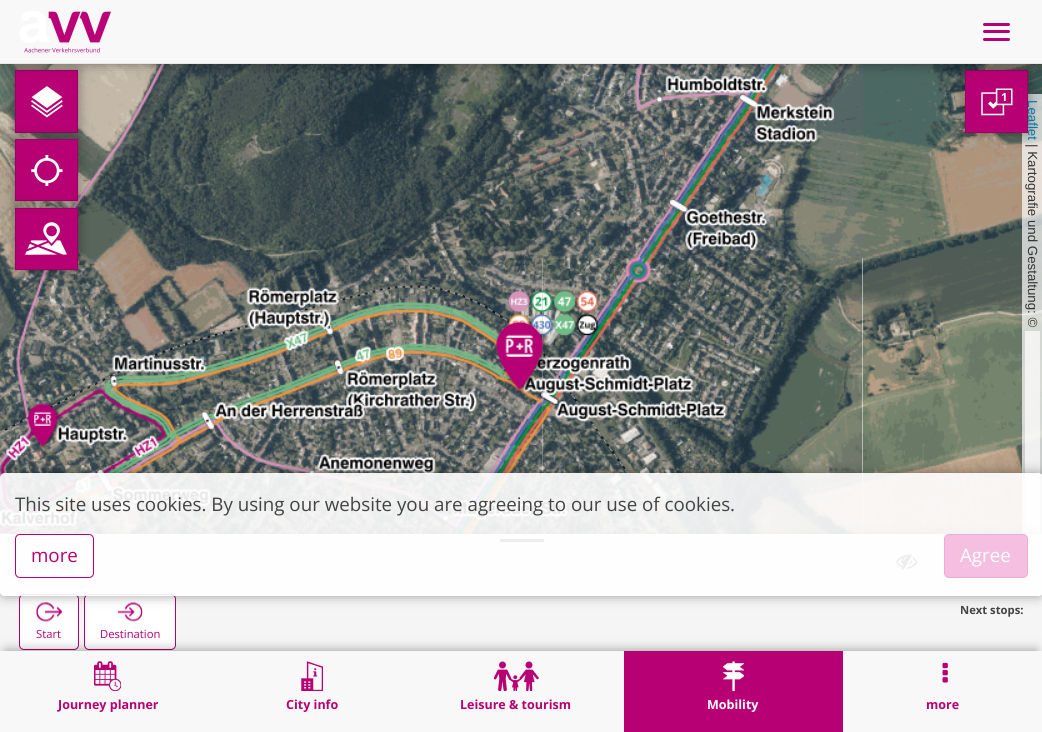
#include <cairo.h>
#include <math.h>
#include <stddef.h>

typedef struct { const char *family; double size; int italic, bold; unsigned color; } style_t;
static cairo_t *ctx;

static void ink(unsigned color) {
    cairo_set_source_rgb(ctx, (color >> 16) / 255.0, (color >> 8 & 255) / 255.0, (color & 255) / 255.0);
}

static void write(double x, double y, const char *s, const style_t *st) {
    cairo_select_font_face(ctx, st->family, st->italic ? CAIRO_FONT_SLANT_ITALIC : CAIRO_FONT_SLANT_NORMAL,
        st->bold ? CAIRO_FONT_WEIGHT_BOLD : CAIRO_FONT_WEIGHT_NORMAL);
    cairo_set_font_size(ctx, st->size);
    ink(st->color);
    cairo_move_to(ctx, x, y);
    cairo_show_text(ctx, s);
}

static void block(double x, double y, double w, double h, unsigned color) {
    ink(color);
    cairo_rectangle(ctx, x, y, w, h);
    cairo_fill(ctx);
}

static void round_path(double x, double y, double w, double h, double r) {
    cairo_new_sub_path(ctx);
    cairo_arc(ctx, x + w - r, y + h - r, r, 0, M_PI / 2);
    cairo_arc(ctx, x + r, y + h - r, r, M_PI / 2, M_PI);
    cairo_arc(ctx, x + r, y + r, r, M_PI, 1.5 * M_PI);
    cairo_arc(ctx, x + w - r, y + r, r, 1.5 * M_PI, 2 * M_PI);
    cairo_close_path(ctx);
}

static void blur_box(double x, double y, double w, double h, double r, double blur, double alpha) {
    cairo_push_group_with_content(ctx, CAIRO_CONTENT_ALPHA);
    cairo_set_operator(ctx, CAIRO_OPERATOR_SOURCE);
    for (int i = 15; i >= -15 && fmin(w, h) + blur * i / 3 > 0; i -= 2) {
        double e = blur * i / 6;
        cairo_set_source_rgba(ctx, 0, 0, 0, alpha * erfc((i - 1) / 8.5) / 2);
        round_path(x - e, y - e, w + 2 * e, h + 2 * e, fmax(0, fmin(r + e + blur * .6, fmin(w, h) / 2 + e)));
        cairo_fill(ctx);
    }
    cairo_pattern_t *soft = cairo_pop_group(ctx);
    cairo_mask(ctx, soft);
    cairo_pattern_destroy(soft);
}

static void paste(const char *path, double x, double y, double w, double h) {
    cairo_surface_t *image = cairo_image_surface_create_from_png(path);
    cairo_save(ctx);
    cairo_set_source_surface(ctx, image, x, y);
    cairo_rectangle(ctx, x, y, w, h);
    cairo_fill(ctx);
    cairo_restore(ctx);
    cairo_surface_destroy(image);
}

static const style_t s1 = {"Liberation Sans", 13.3, 0, 0, 0x0078a8};
static const style_t s2 = {"Open Sans", 11.25, 0, 1, 0xffffff};
static const style_t s3 = {"Liberation Sans", 13.3, 0, 0, 0x333333};
static const style_t s4 = {"Open Sans", 18.75, 0, 0, 0x434343};
static const style_t s5 = {"Open Sans", 18.75, 0, 0, 0xb70073};
static const style_t s6 = {"Open Sans", 18.75, 0, 0, 0xffffff};
static const style_t s7 = {"Open Sans", 11.25, 0, 1, 0x434343};
static const style_t s8 = {"Open Sans", 11.25, 0, 0, 0xb70073};
static const style_t s9 = {"Open Sans", 12.5, 0, 1, 0xb70073};
static const style_t s10 = {"Open Sans", 12.5, 0, 1, 0xffffff};

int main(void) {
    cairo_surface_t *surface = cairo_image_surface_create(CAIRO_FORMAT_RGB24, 1042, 732);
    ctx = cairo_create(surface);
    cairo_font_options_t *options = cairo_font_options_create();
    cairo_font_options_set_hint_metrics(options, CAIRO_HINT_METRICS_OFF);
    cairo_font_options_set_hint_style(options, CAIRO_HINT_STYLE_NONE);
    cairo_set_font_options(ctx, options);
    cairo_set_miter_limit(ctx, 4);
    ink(0xffffff);
    cairo_paint(ctx);
    paste("pic6.png", 0, 64, 223, 194);
    paste("pic14.png", 71, 64, 95, 144);
    ink(0x000000);
    blur_box(15, 70, 63, 63, 0, 6, 0.4);
    ink(0xb70073);
    cairo_rectangle(ctx, 15.5, 70.5, 62, 62);
    cairo_fill_preserve(ctx);
    ink(0x9e0063);
    cairo_set_line_width(ctx, 1);
    cairo_stroke(ctx);
    paste("pic9.png", 863, 64, 179, 194);
    paste("pic13.png", 863, 258, 179, 276);
    cairo_set_source_rgba(ctx, 1, 1, 1, 0.7);
    cairo_rectangle(ctx, 1022, 94, 20, 440);
    cairo_fill(ctx);
    ink(0x000000);
    blur_box(965, 70, 63, 63, 0, 6, 0.4);
    block(966, 71, 61, 61, 0xb70073);
    paste("pic5.png", 981, 88, 32, 28);
    cairo_save(ctx);
    cairo_translate(ctx, 1028, 100);
    cairo_rotate(ctx, 90 * M_PI / 180);
    write(0, 0, "Leaflet", &s1);
    cairo_restore(ctx);
    cairo_rectangle(ctx, 965.5, 70.5, 62, 62);
    ink(0x9e0063);
    cairo_stroke(ctx);
    paste("pic7.png", 223, 64, 320, 194);
    paste("pic8.png", 543, 64, 320, 194);
    paste("pic11.png", 223, 258, 320, 276);
    paste("pic12.png", 542, 258, 321, 276);
    paste("pic10.png", 0, 258, 223, 276);
    paste("pic17.png", 222, 285, 321, 249);
    paste("pic18.png", 542, 257, 185, 277);
    paste("pic15.png", 635, 64, 200, 194);
    ink(0x000000);
    blur_box(0, 0, 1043, 64, 0, 6, 0.4);
    block(0, 0, 1042, 63, 0xf8f8f8);
    block(0, 63, 1042, 1, 0xe7e7e7);
    paste("pic1.png", 19, 11, 92, 42);
    ink(0xb70073);
    round_path(983, 23, 27, 3, 1.5);
    cairo_fill(ctx);
    round_path(983, 30, 27, 3, 1.5);
    cairo_fill(ctx);
    round_path(983, 38, 27, 3, 1.5);
    cairo_fill(ctx);
    paste("pic2.png", 31, 86, 32, 32);
    ink(0x000000);
    blur_box(15, 139, 63, 62, 0, 6, 0.4);
    block(16, 140, 61, 60, 0xb70073);
    paste("pic3.png", 31, 155, 32, 31);
    cairo_rectangle(ctx, 15.5, 139.5, 62, 61);
    ink(0x9e0063);
    cairo_stroke(ctx);
    paste("pic16.png", 0, 270, 223, 264);
    ink(0x000000);
    blur_box(15, 208, 63, 62, 0, 6, 0.4);
    ink(0xb70073);
    cairo_rectangle(ctx, 15.5, 208.5, 62, 61);
    cairo_fill_preserve(ctx);
    ink(0x9e0063);
    cairo_stroke(ctx);
    paste("pic4.png", 25, 222, 42, 33);
    write(1001, 101, "1", &s2);
    paste("pic19.png", 495, 320, 54, 74);
    paste("pic20.png", 27, 403, 35, 46);
    cairo_save(ctx);
    cairo_translate(ctx, 1028, 144);
    cairo_rotate(ctx, 90 * M_PI / 180);
    write(0, 0, "| Kartografie und Gestaltung: ©", &s3);
    cairo_restore(ctx);
    cairo_set_source_rgba(ctx, 1, 1, 1, 0.7);
    cairo_rectangle(ctx, 1025, 331, 15, 170);
    cairo_fill(ctx);
    cairo_rectangle(ctx, 1025, 501, 15, 33);
    cairo_fill(ctx);
    ink(0x000000);
    blur_box(6, 534, 1030, 42, 0, 6, 0.4);
    block(0, 534, 1042, 55, 0xf5f5f5);
    block(500, 539, 44, 3, 0x434343);
    paste("pic21.png", 896, 554, 22, 16);
    block(0, 590, 1042, 61, 0xf5f5f5);
    block(0, 589, 1042, 1, 0xf2f5f6);
    ink(0xffffff);
    round_path(19.5, 594.5, 59, 55, 4.5);
    cairo_fill_preserve(ctx);
    ink(0xb70073);
    cairo_stroke(ctx);
    paste("pic22.png", 36, 602, 27, 20);
    ink(0xffffff);
    round_path(84.5, 594.5, 91, 55, 4.5);
    cairo_fill_preserve(ctx);
    ink(0xb70073);
    cairo_stroke(ctx);
    paste("pic23.png", 118, 602, 25, 20);
    cairo_save(ctx);
    cairo_set_fill_rule(ctx, CAIRO_FILL_RULE_EVEN_ODD);
    cairo_new_path(ctx);
    cairo_move_to(ctx, 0, 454);
    cairo_line_to(ctx, 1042, 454);
    cairo_line_to(ctx, 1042, 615);
    cairo_line_to(ctx, 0, 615);
    cairo_close_path(ctx);
    cairo_move_to(ctx, 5, 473);
    cairo_line_to(ctx, 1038, 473);
    cairo_curve_to(ctx, 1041, 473, 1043, 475, 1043, 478);
    cairo_line_to(ctx, 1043, 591);
    cairo_curve_to(ctx, 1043, 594, 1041, 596, 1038, 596);
    cairo_line_to(ctx, 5, 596);
    cairo_curve_to(ctx, 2, 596, 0, 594, 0, 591);
    cairo_line_to(ctx, 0, 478);
    cairo_curve_to(ctx, 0, 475, 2, 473, 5, 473);
    cairo_close_path(ctx);
    cairo_clip(ctx);
    ink(0x000000);
    blur_box(0, 473, 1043, 123, 5, 6, 0.36);
    cairo_restore(ctx);
    cairo_set_source_rgba(ctx, 1, 1, 1, 0.9);
    round_path(0, 473, 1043, 123, 5);
    cairo_fill(ctx);
    write(15, 511, "This site uses cookies. By using our website you are agreeing to our use of cookies.", &s4);
    round_path(15.5, 534.5, 78, 43, 4.5);
    ink(0xb70073);
    cairo_stroke(ctx);
    write(31, 562, "more", &s5);
    ink(0xf4bfe1);
    round_path(944.5, 534.5, 83, 43, 4.5);
    cairo_fill_preserve(ctx);
    ink(0xf0a9d7);
    cairo_stroke(ctx);
    write(960, 562, "Agree", &s6);
    write(960, 614, "Next stops:", &s7);
    write(36, 638, "Start", &s8);
    write(100, 638, "Destination", &s8);
    ink(0x000000);
    blur_box(6, 651, 1030, 69, 0, 6, 0.4);
    block(0, 651, 624, 81, 0xf8f8f8);
    paste("pic24.png", 94, 661, 27, 30);
    write(58, 709, "Journey planner", &s9);
    paste("pic25.png", 301, 661, 22, 30);
    write(286, 709, "City info", &s9);
    paste("pic26.png", 494, 661, 45, 30);
    write(460, 709, "Leisure & tourism", &s9);
    block(624, 651, 219, 81, 0xb70073);
    paste("pic27.png", 723, 661, 21, 30);
    write(707, 709, "Mobility", &s10);
    block(843, 651, 199, 81, 0xf8f8f8);
    paste("pic28.png", 942, 662, 6, 21);
    write(926, 709, "more", &s9);
    cairo_surface_write_to_png(surface, "screenshot.png");
    cairo_font_options_destroy(options);
    cairo_destroy(ctx);
    cairo_surface_destroy(surface);
    return 0;
}
